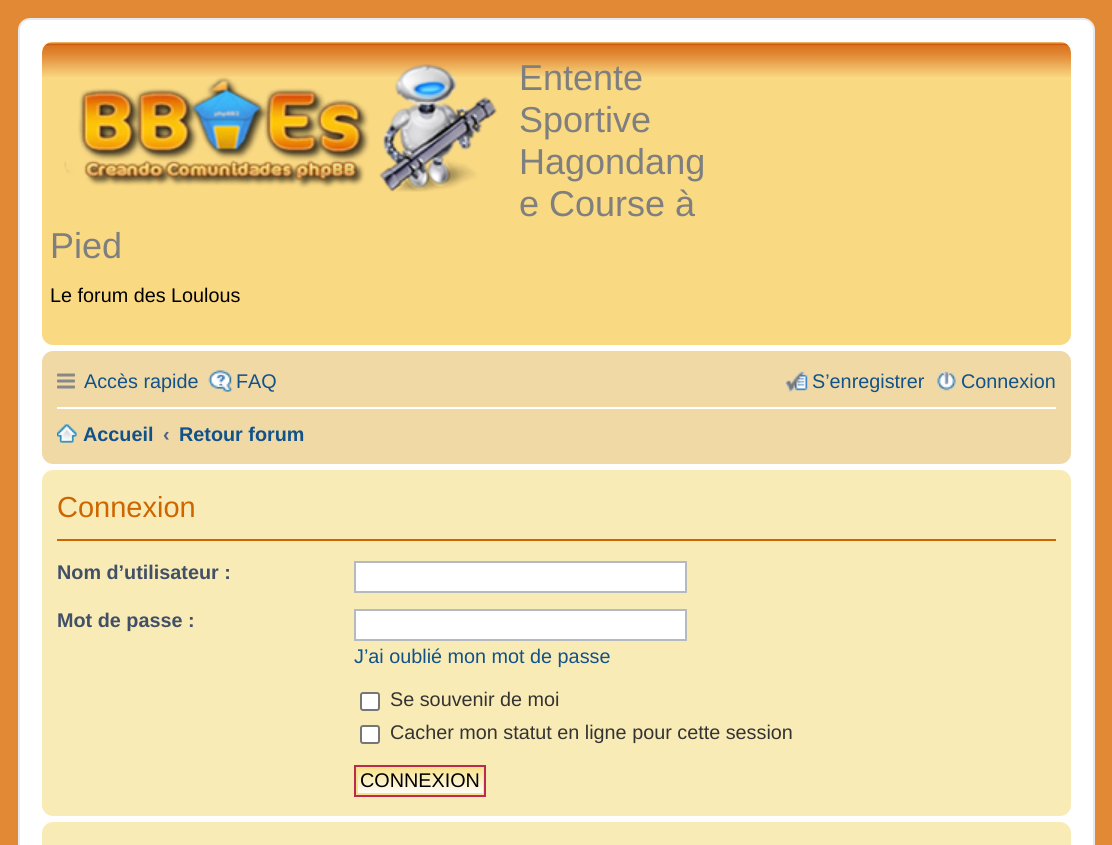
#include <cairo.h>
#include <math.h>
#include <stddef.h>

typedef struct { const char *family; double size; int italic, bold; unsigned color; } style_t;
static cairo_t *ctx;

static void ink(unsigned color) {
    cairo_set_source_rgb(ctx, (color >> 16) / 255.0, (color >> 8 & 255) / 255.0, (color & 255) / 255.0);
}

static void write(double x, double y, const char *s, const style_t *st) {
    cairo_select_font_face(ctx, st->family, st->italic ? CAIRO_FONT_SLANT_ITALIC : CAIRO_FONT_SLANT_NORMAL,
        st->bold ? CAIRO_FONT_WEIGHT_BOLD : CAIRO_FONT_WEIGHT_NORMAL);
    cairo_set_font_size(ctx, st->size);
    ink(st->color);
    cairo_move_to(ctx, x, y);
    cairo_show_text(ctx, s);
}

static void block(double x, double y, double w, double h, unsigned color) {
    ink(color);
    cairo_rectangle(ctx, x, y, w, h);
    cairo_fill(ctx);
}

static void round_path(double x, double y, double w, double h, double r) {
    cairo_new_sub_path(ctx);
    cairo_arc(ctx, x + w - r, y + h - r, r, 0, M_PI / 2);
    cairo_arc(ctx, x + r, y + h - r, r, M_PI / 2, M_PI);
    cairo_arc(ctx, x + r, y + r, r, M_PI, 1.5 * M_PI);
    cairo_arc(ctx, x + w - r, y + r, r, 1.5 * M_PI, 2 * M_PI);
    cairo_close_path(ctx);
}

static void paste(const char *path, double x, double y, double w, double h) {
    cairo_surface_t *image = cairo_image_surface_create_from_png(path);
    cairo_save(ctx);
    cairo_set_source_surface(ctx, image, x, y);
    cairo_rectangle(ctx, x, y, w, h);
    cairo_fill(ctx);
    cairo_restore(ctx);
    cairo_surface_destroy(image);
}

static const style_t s1 = {"Liberation Sans", 36, 0, 0, 0x7f7f7f};
static const style_t s2 = {"Liberation Sans", 19.8, 0, 0, 0x000000};
static const style_t s3 = {"Liberation Sans", 19.8, 0, 0, 0x105289};
static const style_t s4 = {"Liberation Sans", 19.8, 0, 1, 0x105289};
static const style_t s5 = {"Liberation Sans", 19.8, 0, 1, 0x536482};
static const style_t s6 = {"Liberation Sans", 29, 0, 0, 0xcd6600};
static const style_t s7 = {"Liberation Sans", 19.8, 0, 1, 0x425067};
static const style_t s8 = {"Liberation Sans", 19.8, 0, 0, 0x333333};

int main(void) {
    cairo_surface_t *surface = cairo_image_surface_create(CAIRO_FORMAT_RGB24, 1112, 845);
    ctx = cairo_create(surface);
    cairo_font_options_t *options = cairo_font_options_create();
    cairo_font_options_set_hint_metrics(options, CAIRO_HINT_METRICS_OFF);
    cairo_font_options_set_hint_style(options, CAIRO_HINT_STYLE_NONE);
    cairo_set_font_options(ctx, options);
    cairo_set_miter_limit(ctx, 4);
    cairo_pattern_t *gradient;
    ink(0xe18935);
    cairo_paint(ctx);
    ink(0xffffff);
    round_path(19, 19, 1075, 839, 11);
    cairo_fill_preserve(ctx);
    ink(0xe6e9ed);
    cairo_stroke(ctx);
    ink(0xfad983);
    round_path(42, 42, 1029, 303, 11);
    cairo_fill(ctx);
    paste("pic1.png", 42, 42, 1029, 35);
    paste("pic2.png", 64, 64, 433, 128);
    write(519, 90, "Entente", &s1);
    write(519, 132, "Sportive", &s1);
    write(519, 174, "Hagondang", &s1);
    write(519, 216, "e Course à", &s1);
    write(50, 258, "Pied", &s1);
    write(50, 302, "Le forum des Loulous", &s2);
    ink(0xf0d9a5);
    round_path(42, 351, 1029, 113, 11);
    cairo_fill(ctx);
    paste("pic3.png", 57, 373, 18, 16);
    write(84, 388, "Accès rapide", &s3);
    paste("pic4.png", 208, 370, 25, 22);
    write(236, 388, "FAQ", &s3);
    paste("pic5.png", 785, 371, 23, 21);
    write(812, 388, "S’enregistrer", &s3);
    paste("pic6.png", 937, 371, 19, 20);
    write(961, 388, "Connexion", &s3);
    block(57, 407, 999, 2, 0xffffff);
    paste("pic7.png", 57, 424, 20, 19);
    write(83, 441, "Accueil", &s4);
    write(163, 441, "‹", &s5);
    write(179, 441, "Retour forum", &s4);
    ink(0xf9ebb6);
    round_path(42, 470, 1029, 346, 11);
    cairo_fill(ctx);
    block(57, 539, 999, 2, 0xcd6600);
    write(57, 517, "Connexion", &s6);
    write(57, 579, "Nom d’utilisateur :", &s7);
    ink(0xffffff);
    cairo_rectangle(ctx, 355, 562, 331, 30);
    cairo_fill_preserve(ctx);
    ink(0xb4bac0);
    cairo_stroke(ctx);
    write(57, 627, "Mot de passe :", &s7);
    ink(0xffffff);
    cairo_rectangle(ctx, 355, 610, 331, 30);
    cairo_fill_preserve(ctx);
    ink(0xb4bac0);
    cairo_stroke(ctx);
    write(354, 663, "J’ai oublié mon mot de passe", &s3);
    ink(0xffffff);
    round_path(361, 693, 18, 17, 2);
    cairo_fill_preserve(ctx);
    ink(0x767676);
    cairo_stroke(ctx);
    write(390, 706, "Se souvenir de moi", &s8);
    ink(0xffffff);
    round_path(361, 726, 18, 17, 2);
    cairo_fill_preserve(ctx);
    ink(0x767676);
    cairo_stroke(ctx);
    write(390, 739, "Cacher mon statut en ligne pour cette session", &s8);
    gradient = cairo_pattern_create_linear(420, 767, 420, 795);
    cairo_pattern_add_color_stop_rgba(gradient, 0, 0.976, 0.886, 0.537, 1);
    cairo_pattern_add_color_stop_rgba(gradient, 1, 1, 1, 1, 1);
    cairo_set_source(ctx, gradient);
    cairo_pattern_destroy(gradient);
    cairo_rectangle(ctx, 358, 769, 125, 24);
    cairo_fill(ctx);
    cairo_rectangle(ctx, 357, 768, 127, 26);
    ink(0xf9e289);
    cairo_stroke(ctx);
    cairo_rectangle(ctx, 355, 766, 130, 30);
    ink(0xbc2a4d);
    cairo_stroke(ctx);
    write(360, 787, "CONNEXION", &s2);
    ink(0xf9ebb6);
    round_path(42, 822, 1029, 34, 11);
    cairo_fill(ctx);
    cairo_surface_write_to_png(surface, "screenshot.png");
    cairo_font_options_destroy(options);
    cairo_destroy(ctx);
    cairo_surface_destroy(surface);
    return 0;
}
